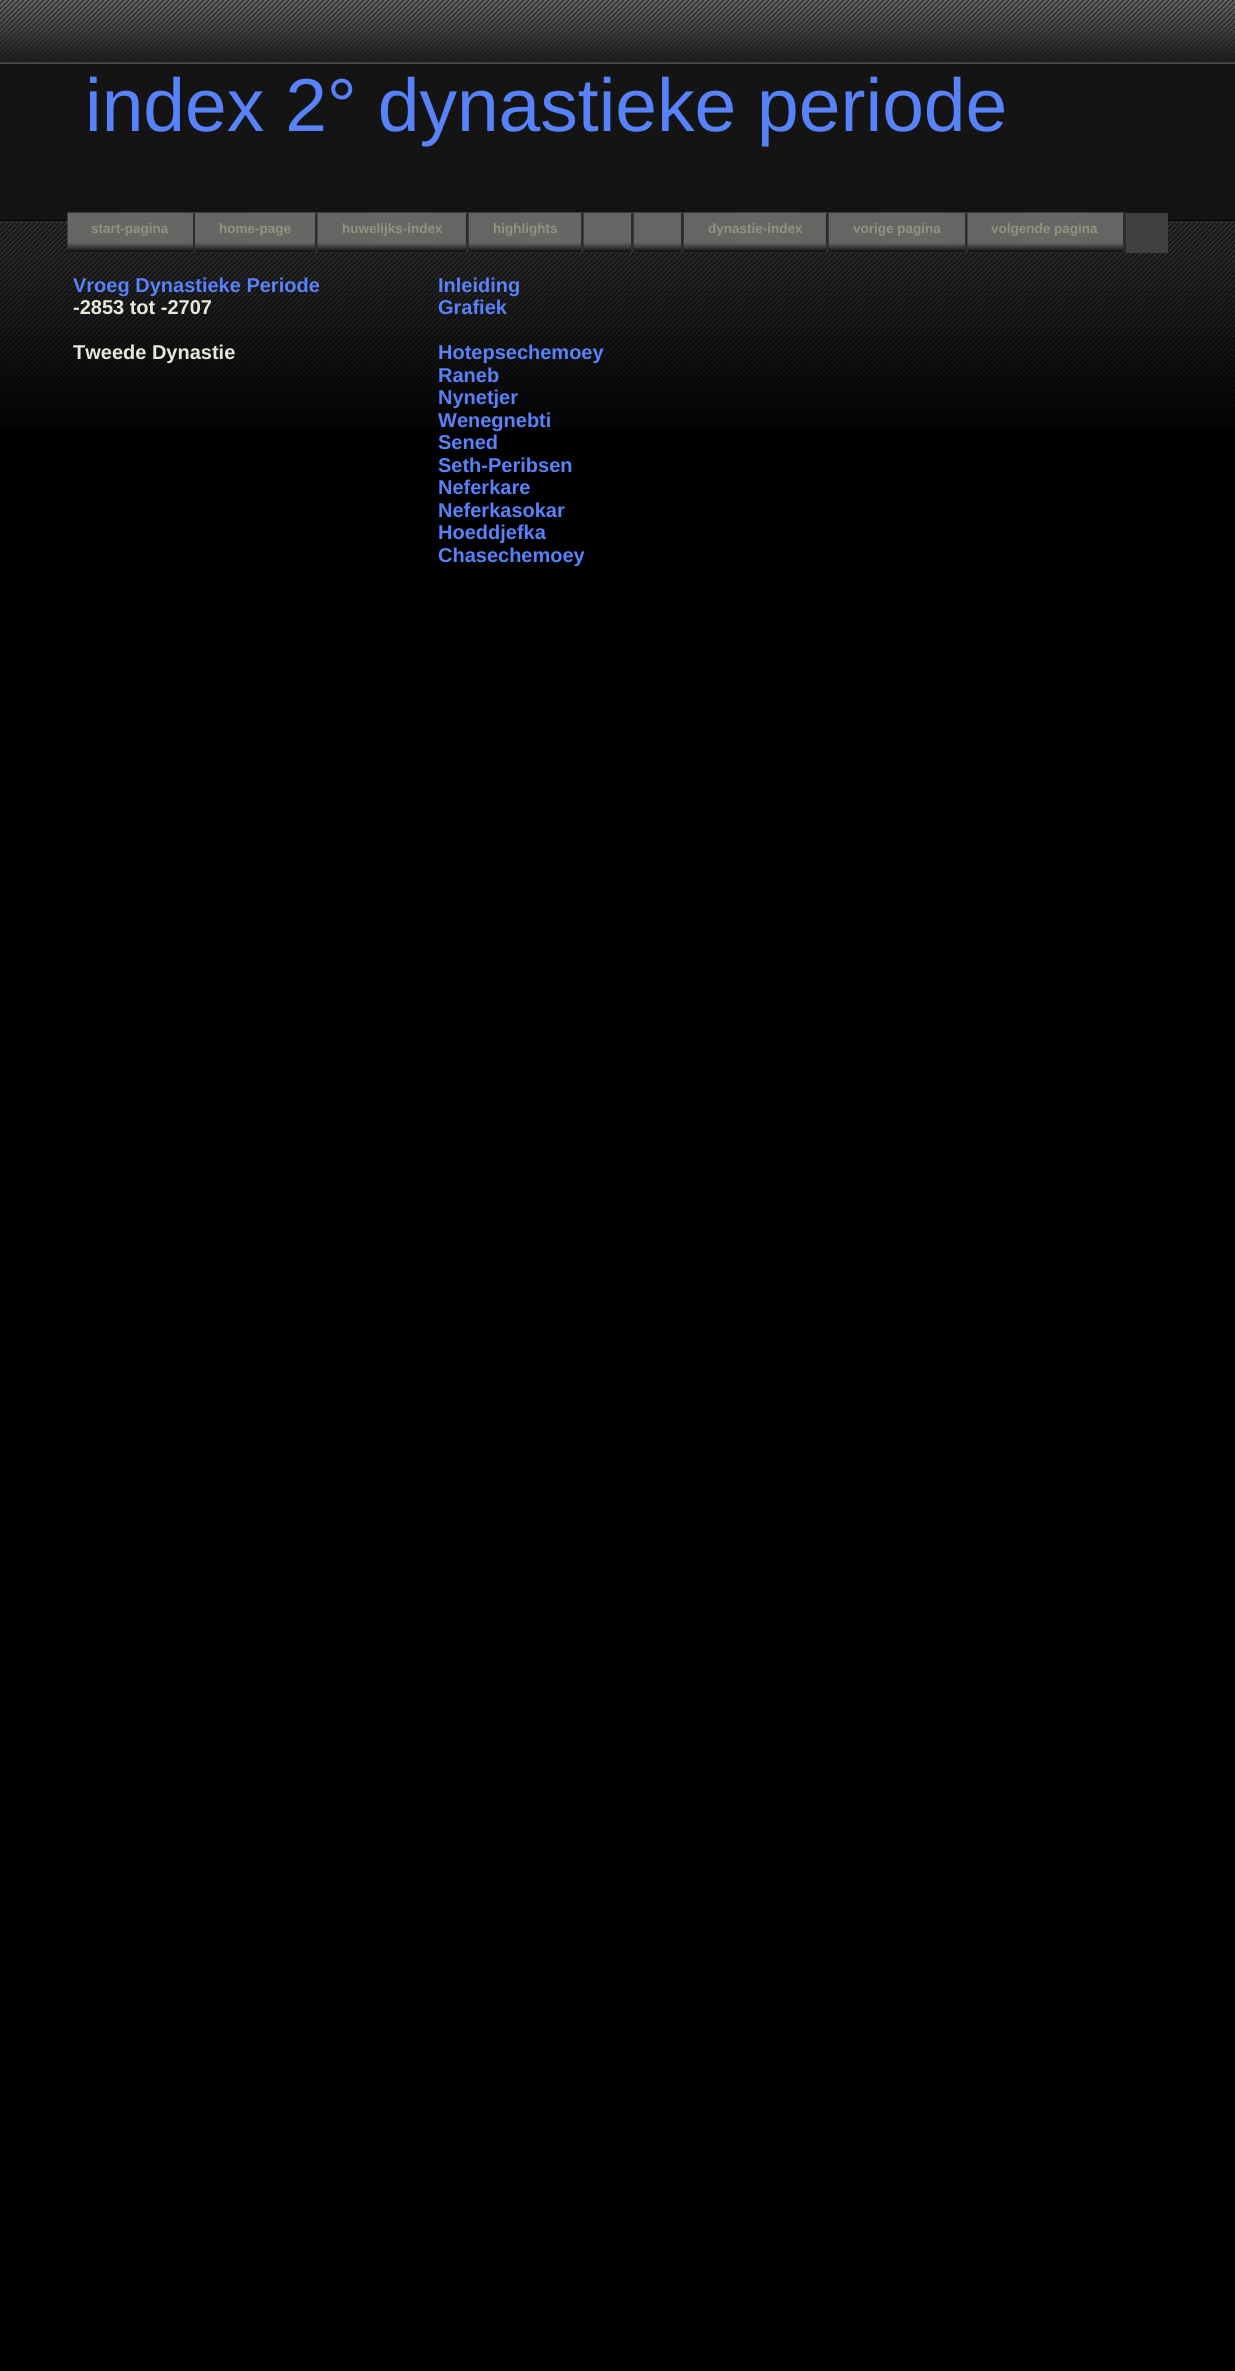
#include <cairo.h>
#include <math.h>
#include <stddef.h>

typedef struct { const char *family; double size; int italic, bold; unsigned color; } style_t;
static cairo_t *ctx;

static void ink(unsigned color) {
    cairo_set_source_rgb(ctx, (color >> 16) / 255.0, (color >> 8 & 255) / 255.0, (color & 255) / 255.0);
}

static void write(double x, double y, const char *s, const style_t *st) {
    cairo_select_font_face(ctx, st->family, st->italic ? CAIRO_FONT_SLANT_ITALIC : CAIRO_FONT_SLANT_NORMAL,
        st->bold ? CAIRO_FONT_WEIGHT_BOLD : CAIRO_FONT_WEIGHT_NORMAL);
    cairo_set_font_size(ctx, st->size);
    ink(st->color);
    cairo_move_to(ctx, x, y);
    cairo_show_text(ctx, s);
}

static void block(double x, double y, double w, double h, unsigned color) {
    ink(color);
    cairo_rectangle(ctx, x, y, w, h);
    cairo_fill(ctx);
}

static void paste(const char *path, double x, double y, double w, double h) {
    cairo_surface_t *image = cairo_image_surface_create_from_png(path);
    cairo_save(ctx);
    cairo_set_source_surface(ctx, image, x, y);
    cairo_rectangle(ctx, x, y, w, h);
    cairo_fill(ctx);
    cairo_restore(ctx);
    cairo_surface_destroy(image);
}

static const style_t s1 = {"Liberation Sans", 75, 0, 0, 0x5882fa};
static const style_t s2 = {"Liberation Sans", 13.5, 0, 1, 0x929280};
static const style_t s3 = {"Liberation Sans", 20, 0, 1, 0x5882fa};
static const style_t s4 = {"Liberation Sans", 20, 0, 1, 0xe6e8dc};

int main(void) {
    cairo_surface_t *surface = cairo_image_surface_create(CAIRO_FORMAT_RGB24, 1235, 2371);
    ctx = cairo_create(surface);
    cairo_font_options_t *options = cairo_font_options_create();
    cairo_font_options_set_hint_metrics(options, CAIRO_HINT_METRICS_OFF);
    cairo_font_options_set_hint_style(options, CAIRO_HINT_STYLE_NONE);
    cairo_set_font_options(ctx, options);
    cairo_set_miter_limit(ctx, 4);
    ink(0x000000);
    cairo_paint(ctx);
    paste("pic1.png", 0, 0, 1235, 430);
    write(85, 131, "index 2° dynastieke periode", &s1);
    block(68, 213, 1100, 40, 0x40403e);
    paste("pic2.png", 67, 212, 128, 41);
    block(193, 213, 3, 40, 0x2c2c2a);
    write(91, 233, "start-pagina", &s2);
    paste("pic3.png", 195, 212, 123, 41);
    block(315, 213, 3, 40, 0x2c2c2a);
    write(219, 233, "home-page", &s2);
    paste("pic4.png", 317, 212, 152, 41);
    block(466, 213, 3, 40, 0x2c2c2a);
    write(342, 233, "huwelijks-index", &s2);
    paste("pic5.png", 468, 212, 116, 41);
    block(581, 213, 3, 40, 0x2c2c2a);
    write(493, 233, "highlights", &s2);
    paste("pic6.png", 583, 212, 51, 41);
    block(631, 213, 3, 40, 0x2c2c2a);
    paste("pic6.png", 633, 212, 51, 41);
    block(681, 213, 3, 40, 0x2c2c2a);
    paste("pic7.png", 683, 212, 146, 41);
    block(826, 213, 3, 40, 0x2c2c2a);
    write(708, 233, "dynastie-index", &s2);
    paste("pic8.png", 828, 212, 140, 41);
    block(965, 213, 3, 40, 0x2c2c2a);
    write(853, 233, "vorige pagina", &s2);
    paste("pic9.png", 967, 212, 158, 41);
    block(1123, 213, 3, 40, 0x2c2c2a);
    write(991, 233, "volgende pagina", &s2);
    write(73, 292, "Vroeg Dynastieke Periode", &s3);
    write(73, 314, "-2853 tot -2707", &s4);
    write(73, 359, "Tweede Dynastie", &s4);
    write(438, 292, "Inleiding", &s3);
    write(438, 314, "Grafiek", &s3);
    write(438, 359, "Hotepsechemoey", &s3);
    write(438, 382, "Raneb", &s3);
    write(438, 404, "Nynetjer", &s3);
    write(438, 427, "Wenegnebti", &s3);
    write(438, 449, "Sened", &s3);
    write(438, 472, "Seth-Peribsen", &s3);
    write(438, 494, "Neferkare", &s3);
    write(438, 517, "Neferkasokar", &s3);
    write(438, 539, "Hoeddjefka", &s3);
    write(438, 562, "Chasechemoey", &s3);
    cairo_surface_write_to_png(surface, "screenshot.png");
    cairo_font_options_destroy(options);
    cairo_destroy(ctx);
    cairo_surface_destroy(surface);
    return 0;
}
